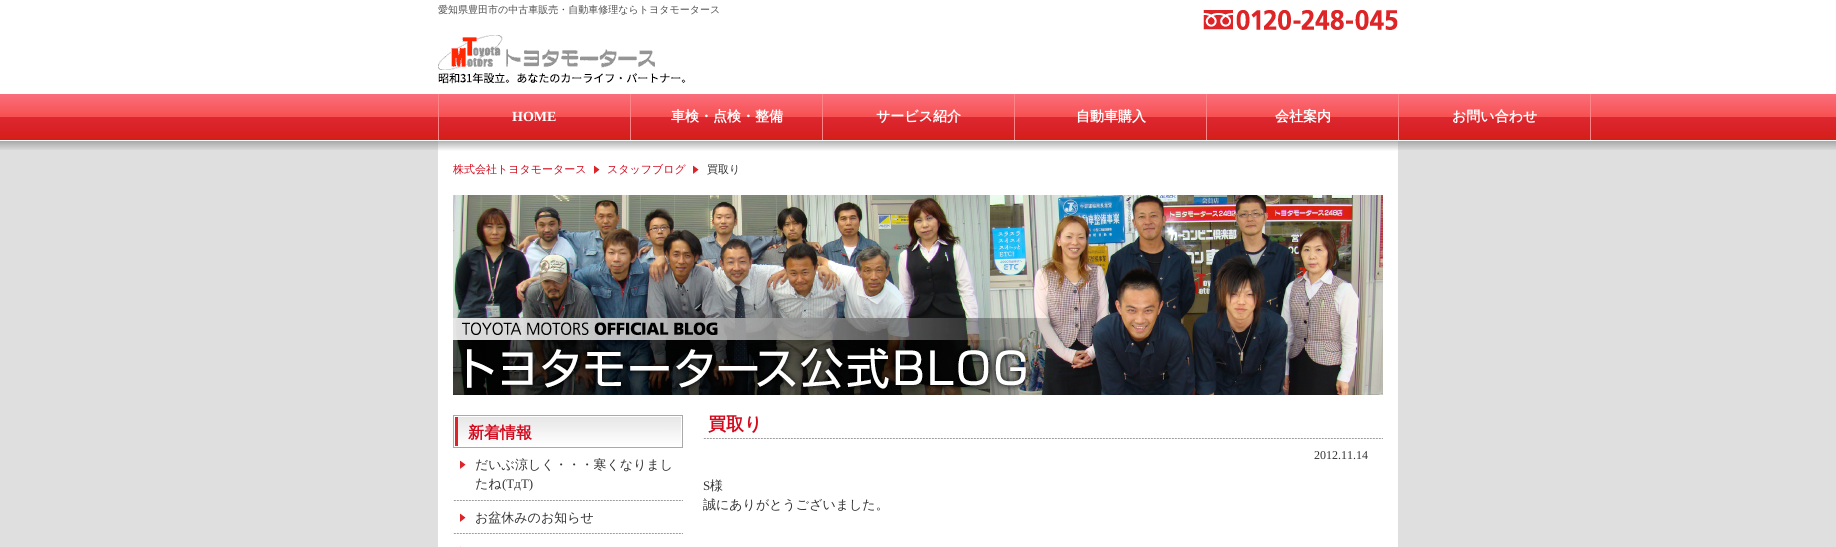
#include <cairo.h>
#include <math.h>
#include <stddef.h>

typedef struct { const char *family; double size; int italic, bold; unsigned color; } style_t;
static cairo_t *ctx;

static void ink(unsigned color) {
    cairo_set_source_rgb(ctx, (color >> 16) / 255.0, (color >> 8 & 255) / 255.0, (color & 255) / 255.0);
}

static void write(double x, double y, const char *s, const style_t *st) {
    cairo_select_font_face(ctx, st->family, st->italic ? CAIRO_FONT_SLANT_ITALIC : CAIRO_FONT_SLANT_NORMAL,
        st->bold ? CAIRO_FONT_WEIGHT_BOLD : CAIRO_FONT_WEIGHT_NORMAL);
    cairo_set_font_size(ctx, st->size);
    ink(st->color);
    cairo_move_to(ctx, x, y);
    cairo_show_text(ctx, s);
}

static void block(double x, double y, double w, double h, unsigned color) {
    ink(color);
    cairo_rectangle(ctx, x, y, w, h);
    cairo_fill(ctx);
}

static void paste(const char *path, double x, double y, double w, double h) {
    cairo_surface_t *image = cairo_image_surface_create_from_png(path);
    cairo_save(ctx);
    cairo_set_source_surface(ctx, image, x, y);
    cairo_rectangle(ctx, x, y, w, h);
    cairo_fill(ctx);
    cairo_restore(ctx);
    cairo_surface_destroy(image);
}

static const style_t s1 = {"WenQuanYi Zen Hei Medium", 10, 0, 0, 0x4d4d4d};
static const style_t s2 = {"Liberation Serif", 14, 0, 1, 0xffffff};
static const style_t s3 = {"WenQuanYi Zen Hei", 14, 0, 1, 0xffffff};
static const style_t s4 = {"WenQuanYi Zen Hei Medium", 11, 0, 0, 0xd20a1e};
static const style_t s5 = {"WenQuanYi Zen Hei Medium", 11, 0, 0, 0x333333};
static const style_t s6 = {"WenQuanYi Zen Hei", 16, 0, 1, 0xd20a1e};
static const style_t s7 = {"WenQuanYi Zen Hei Medium", 13, 0, 0, 0x333333};
static const style_t s8 = {"Liberation Serif", 13, 0, 0, 0x333333};
static const style_t s9 = {"WenQuanYi Zen Hei", 18, 0, 1, 0xd20a1e};
static const style_t s10 = {"Liberation Serif", 12, 0, 0, 0x333333};

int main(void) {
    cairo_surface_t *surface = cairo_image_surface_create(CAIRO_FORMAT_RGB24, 1836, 547);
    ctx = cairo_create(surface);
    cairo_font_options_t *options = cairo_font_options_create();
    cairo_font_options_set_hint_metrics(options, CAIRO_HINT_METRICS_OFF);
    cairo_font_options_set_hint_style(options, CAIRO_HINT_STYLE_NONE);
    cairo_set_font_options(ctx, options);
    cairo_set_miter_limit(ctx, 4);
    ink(0xdfdfdf);
    cairo_paint(ctx);
    paste("pic1.png", 0, 0, 1836, 150);
    write(438, 13, "愛知県豊田市の中古車販売・自動車修理ならトヨタモータース", &s1);
    paste("pic2.png", 438, 35, 248, 49);
    paste("pic3.png", 1203, 10, 195, 20);
    block(438, 94, 1, 46, 0xff8587);
    write(512, 121, "HOME", &s2);
    block(630, 94, 1, 46, 0xff8587);
    write(671, 121, "車検・点検・整備", &s3);
    block(822, 94, 1, 46, 0xff8587);
    write(876, 121, "サービス紹介", &s3);
    block(1014, 94, 1, 46, 0xff8587);
    write(1076, 121, "自動車購入", &s3);
    block(1206, 94, 1, 46, 0xff8587);
    write(1275, 121, "会社案内", &s3);
    block(1590, 94, 1, 46, 0xff8587);
    block(1398, 94, 1, 46, 0xff8587);
    write(1452, 121, "お問い合わせ", &s3);
    block(438, 141, 960, 406, 0xffffff);
    paste("pic4.png", 438, 141, 960, 10);
    write(453, 173, "株式会社トヨタモータース", &s4);
    paste("pic5.png", 594, 165, 6, 9);
    write(607, 173, "スタッフブログ", &s4);
    paste("pic5.png", 693, 165, 6, 9);
    write(707, 173, "買取り", &s5);
    paste("pic6.png", 453, 195, 930, 200);
    paste("pic7.png", 453, 415, 230, 33);
    write(468, 438, "新着情報", &s6);
    paste("pic8.png", 453, 500, 230, 1);
    paste("pic5.png", 460, 460, 6, 9);
    write(475, 469, "だいぶ涼しく・・・寒くなりまし", &s7);
    write(475, 488, "たね", &s7);
    write(502, 488, "(TдT)", &s8);
    paste("pic8.png", 453, 533, 230, 1);
    paste("pic5.png", 460, 513, 6, 9);
    write(475, 522, "お盆休みのお知らせ", &s7);
    block(460, 546, 1, 1, 0xfbe7e8);
    paste("pic9.png", 703, 438, 680, 1);
    write(708, 430, "買取り", &s9);
    write(1314, 459, "2012.11.14", &s10);
    write(703, 490, "S", &s8);
    write(710, 490, "様", &s7);
    write(703, 509, "誠にありがとうございました。", &s7);
    cairo_surface_write_to_png(surface, "screenshot.png");
    cairo_font_options_destroy(options);
    cairo_destroy(ctx);
    cairo_surface_destroy(surface);
    return 0;
}
